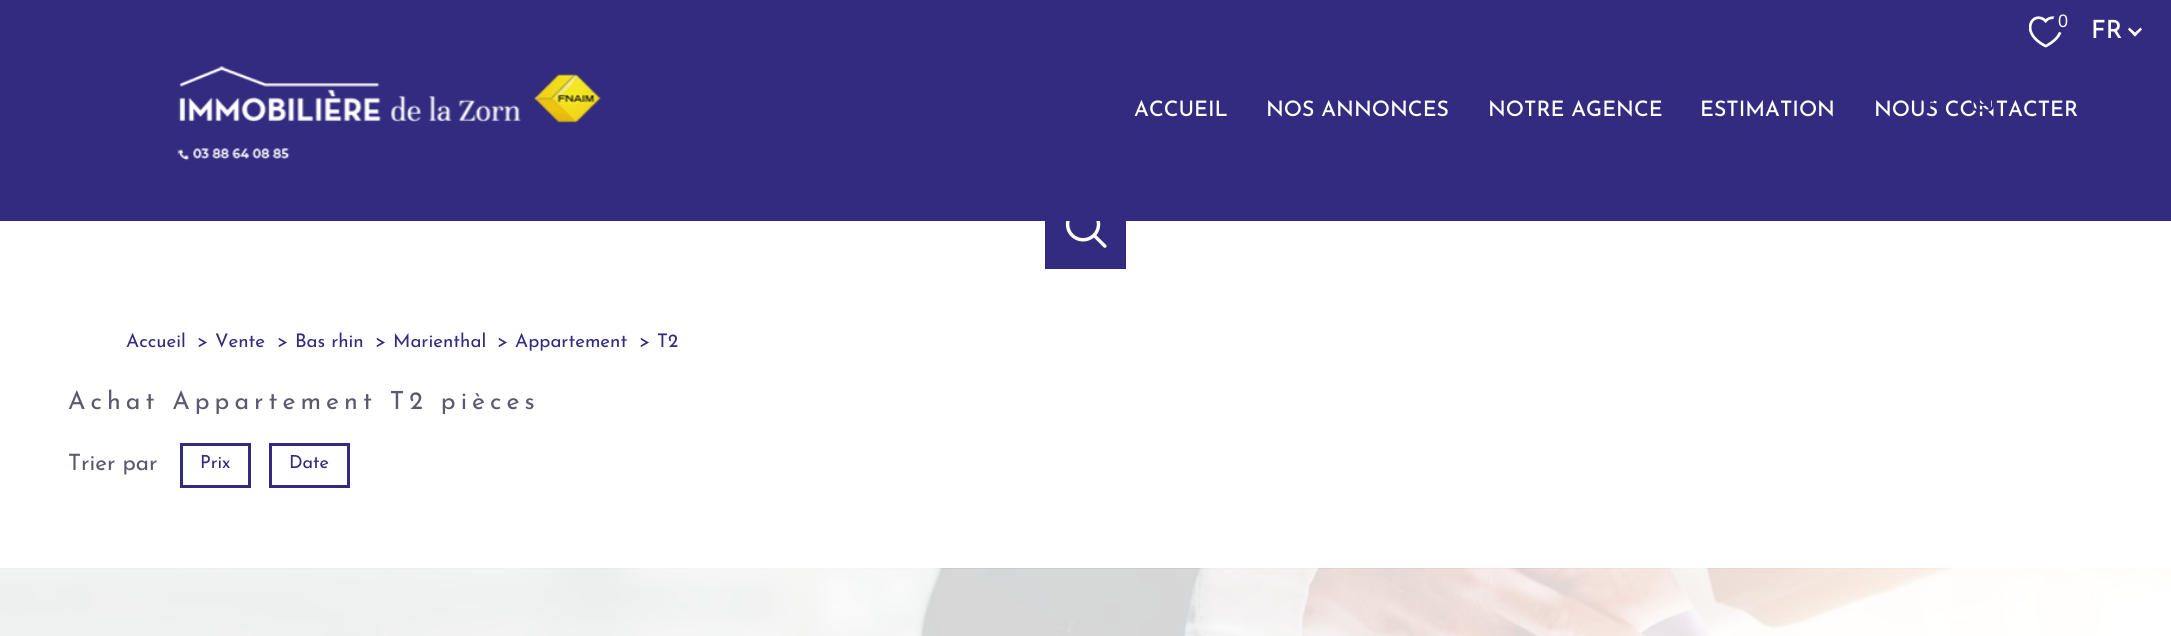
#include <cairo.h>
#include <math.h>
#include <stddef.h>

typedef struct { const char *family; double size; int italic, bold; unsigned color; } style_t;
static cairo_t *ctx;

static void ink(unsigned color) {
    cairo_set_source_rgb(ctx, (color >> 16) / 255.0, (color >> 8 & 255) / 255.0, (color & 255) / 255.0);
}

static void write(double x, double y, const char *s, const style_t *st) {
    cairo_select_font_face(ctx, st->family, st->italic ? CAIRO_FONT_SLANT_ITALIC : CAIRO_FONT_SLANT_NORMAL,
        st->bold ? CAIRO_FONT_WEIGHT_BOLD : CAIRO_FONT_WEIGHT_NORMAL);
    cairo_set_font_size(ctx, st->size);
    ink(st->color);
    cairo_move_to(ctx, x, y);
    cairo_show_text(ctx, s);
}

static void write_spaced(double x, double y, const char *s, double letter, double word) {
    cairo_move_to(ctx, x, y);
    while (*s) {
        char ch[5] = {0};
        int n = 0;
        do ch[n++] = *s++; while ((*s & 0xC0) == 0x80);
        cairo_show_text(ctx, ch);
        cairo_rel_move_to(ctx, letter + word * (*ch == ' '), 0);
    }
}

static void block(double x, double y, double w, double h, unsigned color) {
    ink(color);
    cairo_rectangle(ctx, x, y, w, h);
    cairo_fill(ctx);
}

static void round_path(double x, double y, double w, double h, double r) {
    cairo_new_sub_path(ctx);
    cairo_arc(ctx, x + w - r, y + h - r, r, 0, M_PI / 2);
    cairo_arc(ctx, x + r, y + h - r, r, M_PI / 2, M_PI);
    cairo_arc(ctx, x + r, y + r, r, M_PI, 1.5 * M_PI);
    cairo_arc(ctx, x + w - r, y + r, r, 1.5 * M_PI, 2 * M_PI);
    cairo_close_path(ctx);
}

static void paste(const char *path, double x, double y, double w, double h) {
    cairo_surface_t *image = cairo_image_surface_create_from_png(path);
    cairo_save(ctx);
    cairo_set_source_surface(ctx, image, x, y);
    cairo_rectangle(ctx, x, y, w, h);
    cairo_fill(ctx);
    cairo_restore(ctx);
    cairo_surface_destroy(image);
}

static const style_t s1 = {"Liberation Sans", 18, 0, 0, 0xffffff};
static const style_t s2 = {"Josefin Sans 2 Thin", 25, 0, 0, 0xffffff};
static const style_t s3 = {"Josefin Sans 2 Thin", 21.25, 0, 0, 0xffffff};
static const style_t s4 = {"Josefin Sans Thin", 18.75, 0, 0, 0x322b80};
static const style_t s5 = {"Josefin Sans Thin", 22.5, 0, 0, 0x5b596f};
static const style_t s6 = {"Josefin Sans Thin", 18, 0, 0, 0x322b80};

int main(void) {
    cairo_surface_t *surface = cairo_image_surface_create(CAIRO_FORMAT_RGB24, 2171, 636);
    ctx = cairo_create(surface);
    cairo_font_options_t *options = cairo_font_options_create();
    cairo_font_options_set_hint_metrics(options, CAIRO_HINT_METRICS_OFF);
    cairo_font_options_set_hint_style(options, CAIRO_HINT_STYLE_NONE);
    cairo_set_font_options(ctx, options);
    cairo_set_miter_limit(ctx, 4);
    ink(0xffffff);
    cairo_paint(ctx);
    block(0, 0, 2171, 221, 0x322b80);
    paste("pic1.png", 2029, 16, 33, 32);
    round_path(2053, 11, 21, 22, 10.5);
    cairo_fill(ctx);
    write(2058, 27, "0", &s1);
    write(2091, 38, "FR", &s2);
    cairo_new_path(ctx);
    cairo_move_to(ctx, 2140.5, 27.5);
    cairo_line_to(ctx, 2142, 29.5);
    cairo_line_to(ctx, 2135, 36.5);
    cairo_line_to(ctx, 2133, 34.5);
    cairo_close_path(ctx);
    cairo_fill(ctx);
    cairo_new_path(ctx);
    cairo_move_to(ctx, 2129.5, 27.5);
    cairo_line_to(ctx, 2137, 34.5);
    cairo_line_to(ctx, 2135, 36.5);
    cairo_line_to(ctx, 2128, 29.5);
    cairo_close_path(ctx);
    cairo_fill(ctx);
    paste("pic2.png", 177, 66, 425, 95);
    write(1134, 116, "ACCUEIL", &s3);
    write(1266, 116, "NOS ANNONCES", &s3);
    write(1488, 116, "NOTRE AGENCE", &s3);
    write(1700, 116, "ESTIMATION", &s3);
    write(1874, 116, "NOUS CONTACTER", &s3);
    paste("pic3.png", 1923, 100, 11, 13);
    paste("pic4.png", 1971, 100, 23, 12);
    block(1045, 221, 81, 48, 0x322b80);
    paste("pic5.png", 1065, 221, 42, 27);
    write(126, 347, "Accueil", &s4);
    write(197, 347, ">", &s4);
    write(215, 347, "Vente", &s4);
    write(277, 347, ">", &s4);
    write(295, 347, "Bas rhin", &s4);
    write(375, 347, ">", &s4);
    write(393, 347, "Marienthal", &s4);
    write(497, 347, ">", &s4);
    write(515, 347, "Appartement", &s4);
    write(639, 347, ">", &s4);
    write(657, 347, "T2", &s4);
    cairo_set_font_size(ctx, 25);
    ink(0x5b596f);
    write_spaced(68, 409, "Achat Appartement T2 pièces", 5, 0);
    write(68, 470, "Trier par", &s5);
    cairo_rectangle(ctx, 181.5, 444.5, 68, 42);
    ink(0x322b80);
    cairo_set_line_width(ctx, 3);
    cairo_stroke(ctx);
    write(200, 468, "Prix", &s6);
    cairo_rectangle(ctx, 270.5, 444.5, 78, 42);
    cairo_stroke(ctx);
    write(289, 468, "Date", &s6);
    paste("pic6.png", 0, 568, 2171, 68);
    cairo_surface_write_to_png(surface, "screenshot.png");
    cairo_font_options_destroy(options);
    cairo_destroy(ctx);
    cairo_surface_destroy(surface);
    return 0;
}
